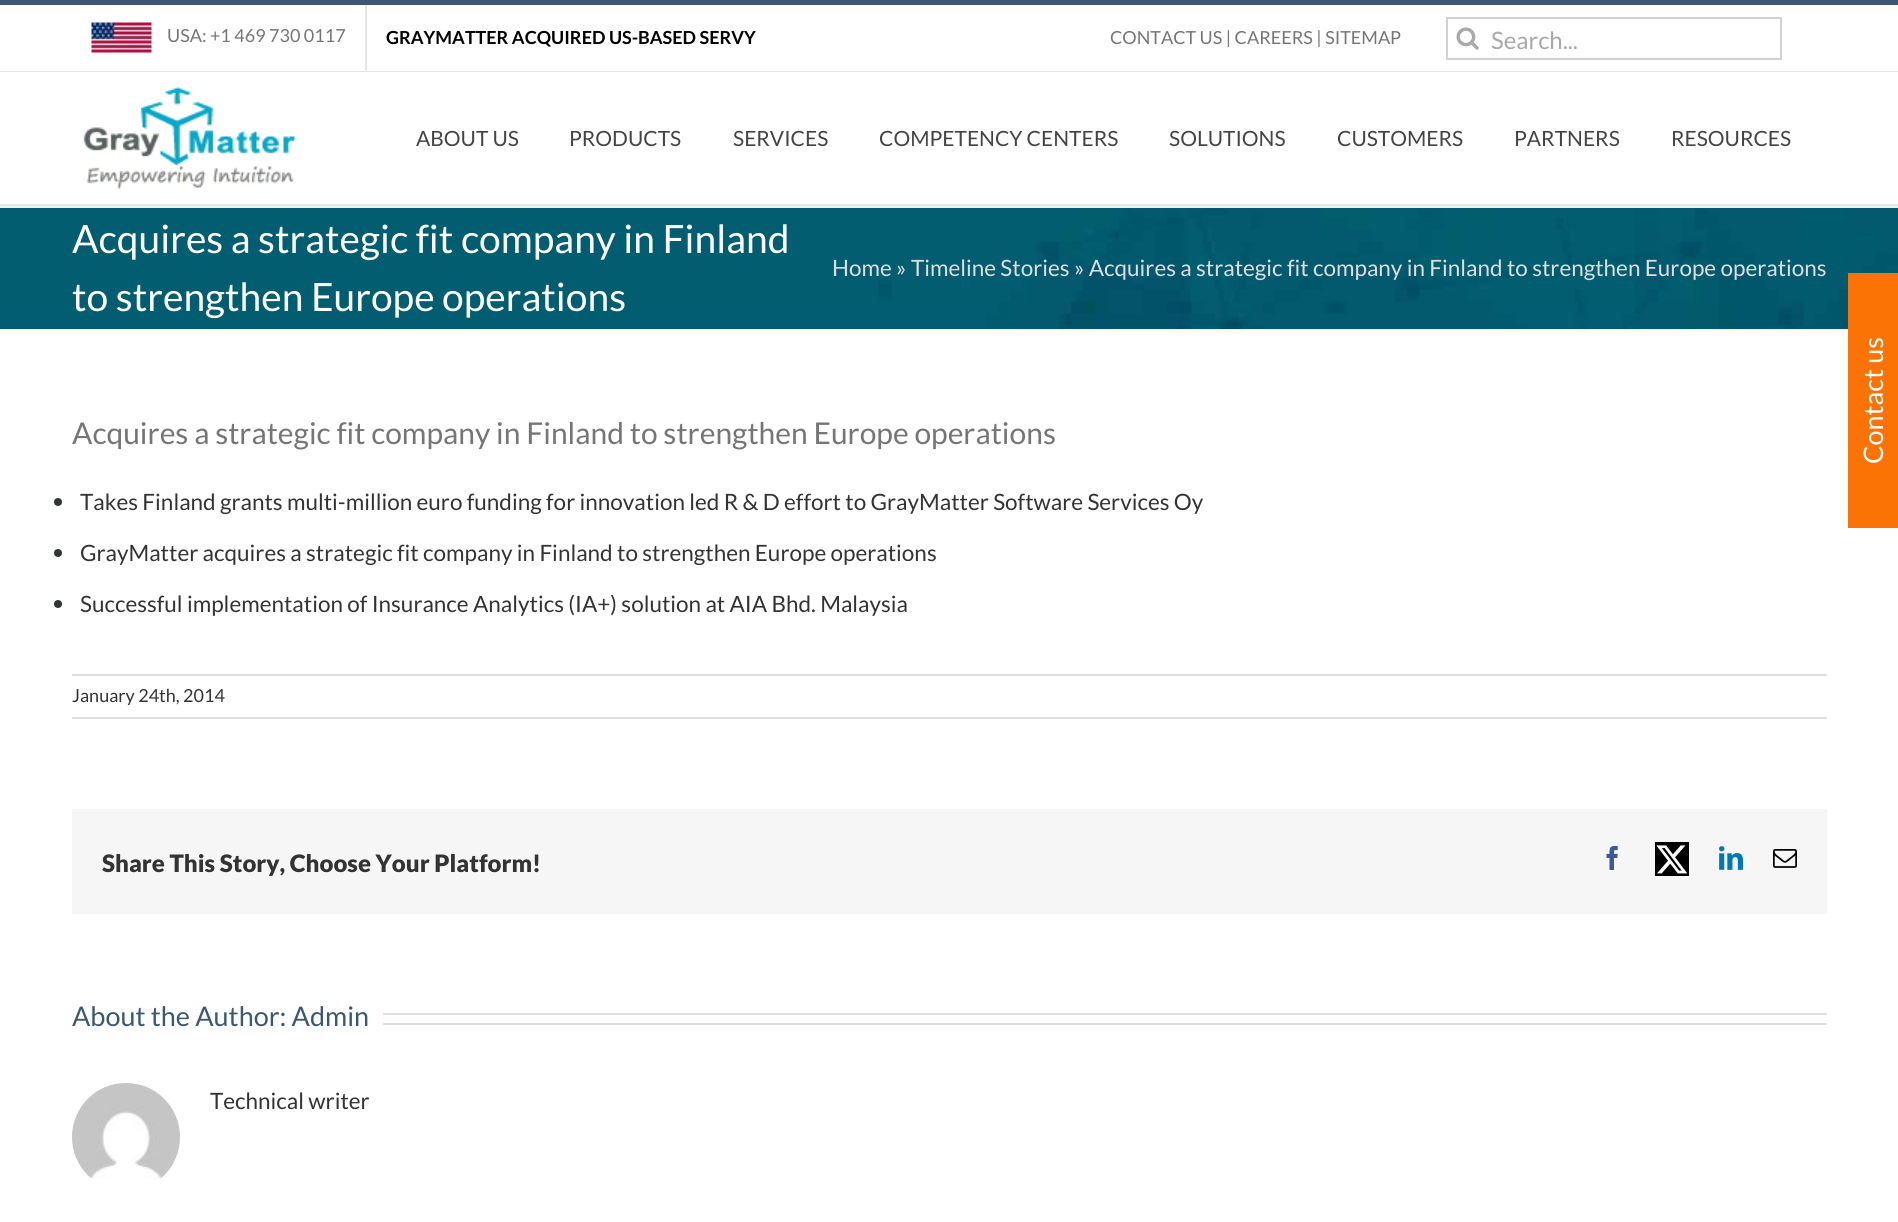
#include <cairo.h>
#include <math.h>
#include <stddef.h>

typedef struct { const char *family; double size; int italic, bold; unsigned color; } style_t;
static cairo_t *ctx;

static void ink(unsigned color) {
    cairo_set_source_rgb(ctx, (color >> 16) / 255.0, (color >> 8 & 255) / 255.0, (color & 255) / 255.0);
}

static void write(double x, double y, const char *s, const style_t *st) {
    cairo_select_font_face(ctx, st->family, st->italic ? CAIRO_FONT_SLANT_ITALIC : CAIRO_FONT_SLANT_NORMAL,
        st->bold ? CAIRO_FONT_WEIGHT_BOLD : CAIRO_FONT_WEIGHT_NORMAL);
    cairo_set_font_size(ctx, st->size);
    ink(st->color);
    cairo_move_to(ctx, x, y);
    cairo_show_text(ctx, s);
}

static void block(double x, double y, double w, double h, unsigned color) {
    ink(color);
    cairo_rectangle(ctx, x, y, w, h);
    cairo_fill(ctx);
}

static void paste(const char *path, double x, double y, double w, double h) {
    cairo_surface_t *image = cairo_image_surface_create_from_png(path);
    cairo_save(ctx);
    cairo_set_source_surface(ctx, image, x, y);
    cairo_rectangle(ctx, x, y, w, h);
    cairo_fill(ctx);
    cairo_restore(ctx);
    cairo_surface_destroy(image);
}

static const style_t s1 = {"Lato", 18, 0, 0, 0x757575};
static const style_t s2 = {"Lato", 18, 0, 1, 0x000000};
static const style_t s3 = {"Lato", 24, 0, 0, 0xaaa9a9};
static const style_t s4 = {"Lato", 21, 0, 0, 0x444444};
static const style_t s5 = {"Lato", 39, 0, 0, 0xffffff};
static const style_t s6 = {"Lato", 22.5, 0, 0, 0xdedede};
static const style_t s7 = {"Lato", 30, 0, 0, 0x757575};
static const style_t s8 = {"Lato", 22.5, 0, 0, 0x333333};
static const style_t s9 = {"Lato", 18, 0, 0, 0x333333};
static const style_t s10 = {"Lato Black", 24, 0, 0, 0x333333};
static const style_t s11 = {"Lato", 27, 0, 0, 0x3b5773};
static const style_t s12 = {"Lato", 27, 0, 0, 0xffffff};

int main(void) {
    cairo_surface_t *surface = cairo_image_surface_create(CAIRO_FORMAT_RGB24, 1898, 1222);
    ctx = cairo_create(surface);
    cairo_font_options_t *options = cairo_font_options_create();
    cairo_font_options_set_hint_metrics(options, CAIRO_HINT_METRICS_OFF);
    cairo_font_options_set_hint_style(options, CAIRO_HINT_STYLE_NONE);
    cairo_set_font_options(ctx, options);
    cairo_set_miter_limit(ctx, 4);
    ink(0xffffff);
    cairo_paint(ctx);
    block(0, 0, 1898, 5, 0x3b5773);
    block(0, 71, 1898, 1, 0xe5e5e5);
    paste("pic1.png", 91, 22, 61, 31);
    write(167, 42, "USA: +1 469 730 0117", &s1);
    block(365, 5, 2, 66, 0xe5e5e5);
    write(386, 44, "GRAYMATTER ACQUIRED US-BASED SERVY", &s2);
    write(1110, 44, "CONTACT US | CAREERS | SITEMAP", &s1);
    cairo_rectangle(ctx, 1447, 18, 334, 41);
    ink(0xd2d2d2);
    cairo_stroke(ctx);
    paste("pic2.png", 1456, 27, 23, 23);
    write(1491, 49, "Search...", &s3);
    block(0, 204, 1898, 2, 0xe5e5e5);
    paste("pic3.png", 83, 87, 213, 102);
    write(416, 146, "ABOUT US", &s4);
    write(569, 146, "PRODUCTS", &s4);
    write(733, 146, "SERVICES", &s4);
    write(879, 146, "COMPETENCY CENTERS", &s4);
    write(1169, 146, "SOLUTIONS", &s4);
    write(1337, 146, "CUSTOMERS", &s4);
    write(1514, 146, "PARTNERS", &s4);
    write(1671, 146, "RESOURCES", &s4);
    paste("pic4.png", 0, 208, 1898, 121);
    block(0, 206, 1898, 2, 0xf2f2f2);
    block(0, 329, 1848, 1, 0xf2f2f2);
    write(72, 253, "Acquires a strategic fit company in Finland", &s5);
    write(72, 311, "to strengthen Europe operations", &s5);
    write(832, 276, "Home » Timeline Stories » Acquires a strategic fit company in Finland to strengthen Europe operations", &s6);
    write(72, 444, "Acquires a strategic fit company in Finland to strengthen Europe operations", &s7);
    ink(0x333638);
    cairo_new_path(ctx);
    cairo_arc(ctx, 58, 502, 4, 0, 2 * M_PI);
    cairo_fill(ctx);
    write(80, 510, "Takes Finland grants multi-million euro funding for innovation led R & D effort to GrayMatter Software Services Oy", &s8);
    ink(0x333638);
    cairo_new_path(ctx);
    cairo_arc(ctx, 58, 553, 4, 0, 2 * M_PI);
    cairo_fill(ctx);
    write(80, 561, "GrayMatter acquires a strategic fit company in Finland to strengthen Europe operations", &s8);
    ink(0x333638);
    cairo_new_path(ctx);
    cairo_arc(ctx, 58, 604, 4, 0, 2 * M_PI);
    cairo_fill(ctx);
    write(80, 612, "Successful implementation of Insurance Analytics (IA+) solution at AIA Bhd. Malaysia", &s8);
    block(72, 674, 1755, 2, 0xe0dede);
    block(72, 717, 1755, 2, 0xe0dede);
    write(72, 702, "January 24th, 2014", &s9);
    block(72, 809, 1755, 105, 0xf6f6f6);
    write(102, 872, "Share This Story, Choose Your Platform!", &s10);
    paste("pic5.png", 1606, 846, 12, 24);
    block(1655, 842, 34, 34, 0x000000);
    paste("pic6.png", 1656, 845, 32, 29);
    paste("pic7.png", 1719, 846, 24, 24);
    paste("pic8.png", 1773, 849, 24, 19);
    write(72, 1026, "About the Author: Admin", &s11);
    block(383, 1013, 1444, 2, 0xe0dede);
    block(383, 1023, 1444, 2, 0xe0dede);
    paste("pic9.png", 72, 1083, 108, 96);
    write(210, 1109, "Technical writer", &s8);
    block(1848, 273, 50, 255, 0xfb7305);
    cairo_save(ctx);
    cairo_translate(ctx, 1883, 464);
    cairo_rotate(ctx, -90 * M_PI / 180);
    write(0, 0, "Contact us", &s12);
    cairo_restore(ctx);
    cairo_surface_write_to_png(surface, "screenshot.png");
    cairo_font_options_destroy(options);
    cairo_destroy(ctx);
    cairo_surface_destroy(surface);
    return 0;
}
